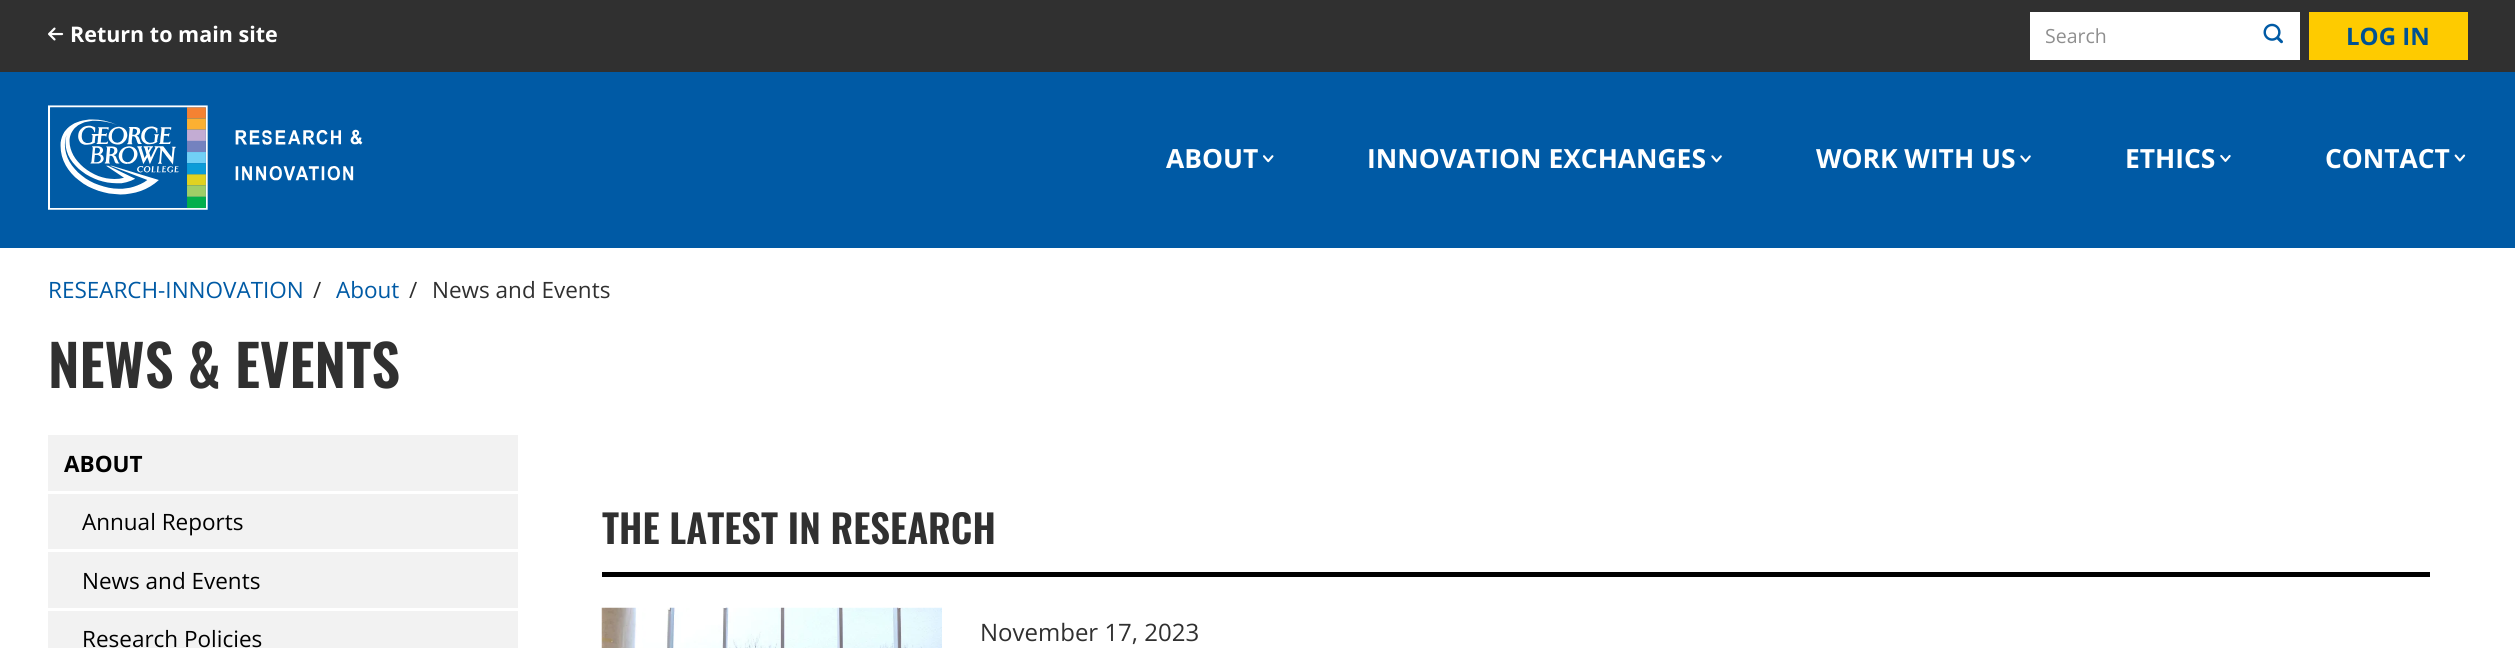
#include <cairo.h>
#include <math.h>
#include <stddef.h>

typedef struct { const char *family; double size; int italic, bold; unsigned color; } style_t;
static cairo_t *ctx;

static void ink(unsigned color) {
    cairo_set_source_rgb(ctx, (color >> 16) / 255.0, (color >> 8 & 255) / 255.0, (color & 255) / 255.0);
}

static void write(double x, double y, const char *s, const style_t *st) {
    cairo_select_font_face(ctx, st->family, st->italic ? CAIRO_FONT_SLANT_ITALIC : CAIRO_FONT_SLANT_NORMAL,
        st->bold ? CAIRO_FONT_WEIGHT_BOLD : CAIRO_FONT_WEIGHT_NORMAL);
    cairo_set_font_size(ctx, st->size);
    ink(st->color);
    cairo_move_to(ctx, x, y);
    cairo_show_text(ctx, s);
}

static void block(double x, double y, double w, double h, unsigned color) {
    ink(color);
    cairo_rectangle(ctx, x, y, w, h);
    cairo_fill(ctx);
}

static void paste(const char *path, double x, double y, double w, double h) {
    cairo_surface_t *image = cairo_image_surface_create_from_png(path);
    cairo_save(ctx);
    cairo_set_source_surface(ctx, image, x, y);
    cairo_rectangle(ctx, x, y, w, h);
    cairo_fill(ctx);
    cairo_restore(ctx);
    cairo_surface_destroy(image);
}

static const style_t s1 = {"Open Sans", 21.5, 0, 1, 0xffffff};
static const style_t s2 = {"Open Sans", 19.5, 0, 0, 0x8f8f8f};
static const style_t s3 = {"Open Sans", 24, 0, 1, 0x005293};
static const style_t s4 = {"Open Sans", 26.4, 0, 1, 0xffffff};
static const style_t s5 = {"Open Sans", 22.5, 0, 0, 0x005aa5};
static const style_t s6 = {"Open Sans", 22.5, 0, 0, 0x303030};
static const style_t s7 = {"Oswald SemiBold", 57, 0, 0, 0x303030};
static const style_t s8 = {"Open Sans", 22.5, 0, 1, 0x000000};
static const style_t s9 = {"Open Sans", 22.5, 0, 0, 0x000000};
static const style_t s10 = {"Oswald SemiBold", 39, 0, 0, 0x303030};
static const style_t s11 = {"Open Sans", 24, 0, 0, 0x303030};

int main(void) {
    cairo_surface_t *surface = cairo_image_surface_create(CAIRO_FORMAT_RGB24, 2515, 648);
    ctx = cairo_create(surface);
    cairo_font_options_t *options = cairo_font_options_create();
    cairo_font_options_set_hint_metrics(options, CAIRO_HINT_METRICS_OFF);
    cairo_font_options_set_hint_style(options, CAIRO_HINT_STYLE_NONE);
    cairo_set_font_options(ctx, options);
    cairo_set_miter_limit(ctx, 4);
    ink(0xffffff);
    cairo_paint(ctx);
    block(0, 72, 2515, 176, 0x005aa5);
    block(0, 0, 2515, 72, 0x303030);
    paste("pic1.png", 48, 27, 16, 14);
    write(70, 42, "Return to main site", &s1);
    block(2030, 12, 270, 48, 0xffffff);
    write(2045, 43, "Search", &s2);
    paste("pic2.png", 2263, 23, 20, 21);
    block(2309, 12, 159, 48, 0xfecb00);
    write(2346, 45, "LOG IN", &s3);
    paste("pic3.png", 48, 105, 315, 105);
    write(1166, 168, "ABOUT", &s4);
    paste("pic4.png", 1263, 155, 11, 8);
    write(1367, 168, "INNOVATION EXCHANGES", &s4);
    paste("pic5.png", 1711, 155, 11, 8);
    write(1816, 168, "WORK WITH US", &s4);
    paste("pic6.png", 2020, 155, 11, 8);
    write(2125, 168, "ETHICS", &s4);
    paste("pic7.png", 2220, 155, 11, 7);
    write(2325, 168, "CONTACT", &s4);
    paste("pic8.png", 2454, 154, 12, 8);
    write(48, 298, "RESEARCH-INNOVATION", &s5);
    write(313, 298, "/", &s6);
    write(336, 298, "About", &s5);
    write(409, 298, "/", &s6);
    write(432, 298, "News and Events", &s6);
    write(48, 388, "NEWS & EVENTS", &s7);
    block(48, 435, 470, 56, 0xf2f2f2);
    write(64, 472, "ABOUT", &s8);
    block(48, 494, 470, 55, 0xf2f2f2);
    write(82, 530, "Annual Reports", &s9);
    block(48, 552, 470, 56, 0xf2f2f2);
    write(82, 589, "News and Events", &s9);
    block(48, 611, 470, 37, 0xf2f2f2);
    write(82, 647, "Research Policies", &s9);
    block(602, 572, 1828, 5, 0x000000);
    write(602, 544, "THE LATEST IN RESEARCH", &s10);
    paste("pic9.png", 601, 607, 341, 41);
    write(980, 641, "November 17, 2023", &s11);
    cairo_surface_write_to_png(surface, "screenshot.png");
    cairo_font_options_destroy(options);
    cairo_destroy(ctx);
    cairo_surface_destroy(surface);
    return 0;
}
